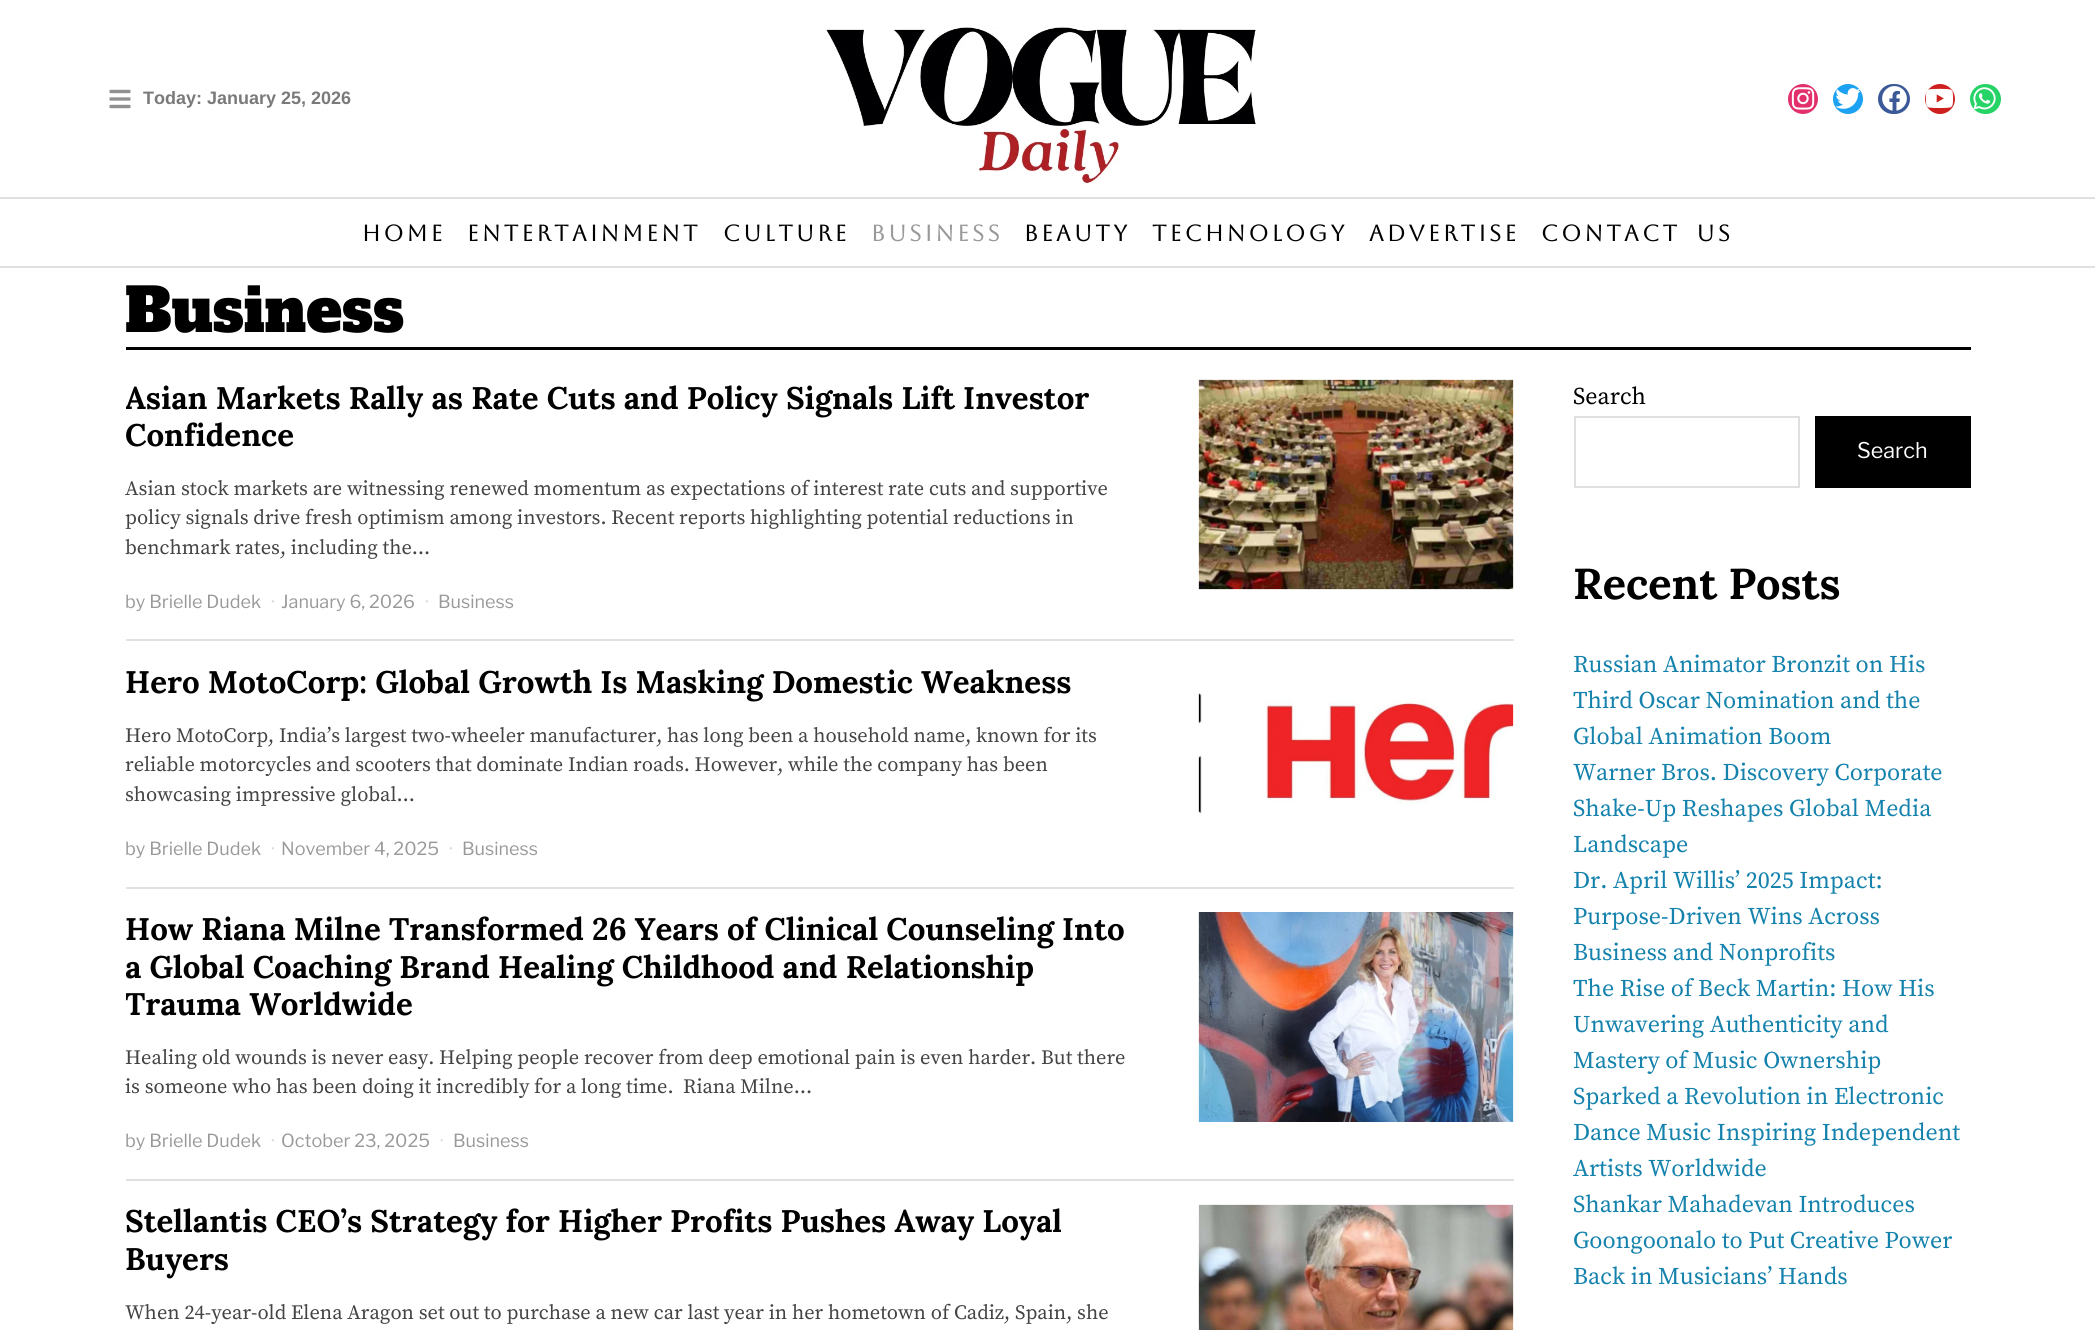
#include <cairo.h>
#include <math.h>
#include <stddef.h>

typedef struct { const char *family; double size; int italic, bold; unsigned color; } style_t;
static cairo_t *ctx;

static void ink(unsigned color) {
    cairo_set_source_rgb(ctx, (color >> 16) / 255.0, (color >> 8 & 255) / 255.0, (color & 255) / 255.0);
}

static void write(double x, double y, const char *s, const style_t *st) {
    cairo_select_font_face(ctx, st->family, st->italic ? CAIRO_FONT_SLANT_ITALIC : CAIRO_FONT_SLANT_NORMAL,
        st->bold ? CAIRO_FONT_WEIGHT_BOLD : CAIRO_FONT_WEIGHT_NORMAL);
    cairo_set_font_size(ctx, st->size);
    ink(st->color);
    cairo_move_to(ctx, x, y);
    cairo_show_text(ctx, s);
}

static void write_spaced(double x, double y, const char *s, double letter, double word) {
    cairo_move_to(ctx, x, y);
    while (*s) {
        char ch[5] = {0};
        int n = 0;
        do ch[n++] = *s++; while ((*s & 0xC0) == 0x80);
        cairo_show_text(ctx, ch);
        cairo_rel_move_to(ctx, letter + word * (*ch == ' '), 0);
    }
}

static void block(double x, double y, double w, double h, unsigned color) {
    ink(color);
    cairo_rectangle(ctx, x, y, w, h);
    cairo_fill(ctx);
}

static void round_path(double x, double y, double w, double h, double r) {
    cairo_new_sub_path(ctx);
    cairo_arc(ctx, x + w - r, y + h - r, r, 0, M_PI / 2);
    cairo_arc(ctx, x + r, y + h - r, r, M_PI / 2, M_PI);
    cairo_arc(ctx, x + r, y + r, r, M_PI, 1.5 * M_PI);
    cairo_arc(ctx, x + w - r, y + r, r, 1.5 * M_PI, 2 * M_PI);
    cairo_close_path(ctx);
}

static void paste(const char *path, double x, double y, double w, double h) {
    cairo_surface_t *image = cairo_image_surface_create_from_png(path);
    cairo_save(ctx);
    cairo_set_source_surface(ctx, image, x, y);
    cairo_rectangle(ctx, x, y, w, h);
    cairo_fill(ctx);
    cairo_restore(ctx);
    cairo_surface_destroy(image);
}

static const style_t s1 = {"Liberation Sans", 18, 0, 1, 0x7a7a7a};
static const style_t s2 = {"Alfa Slab One", 60, 0, 0, 0x000000};
static const style_t s3 = {"Lora", 31.2, 0, 1, 0x000000};
static const style_t s4 = {"Source Serif Pro", 20.4, 0, 0, 0x444444};
static const style_t s5 = {"Libre Franklin", 18, 0, 0, 0x999999};
static const style_t s6 = {"Libre Franklin", 18, 0, 0, 0xd6d6d6};
static const style_t s7 = {"Source Serif Pro", 24, 0, 0, 0x000000};
static const style_t s8 = {"Libre Franklin", 21.5, 0, 0, 0xffffff};
static const style_t s9 = {"Lora", 43.25, 0, 1, 0x000000};
static const style_t s10 = {"Source Serif Pro", 24, 0, 0, 0x1482ad};

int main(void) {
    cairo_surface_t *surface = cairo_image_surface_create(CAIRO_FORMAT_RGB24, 2095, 1330);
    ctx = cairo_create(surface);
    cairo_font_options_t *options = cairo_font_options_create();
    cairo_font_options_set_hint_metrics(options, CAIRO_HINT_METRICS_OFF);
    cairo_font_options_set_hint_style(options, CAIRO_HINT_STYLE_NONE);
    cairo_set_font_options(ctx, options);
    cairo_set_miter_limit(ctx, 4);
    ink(0xffffff);
    cairo_paint(ctx);
    paste("pic1.png", 109, 89, 22, 20);
    write(143, 104, "Today: January 25, 2026", &s1);
    paste("pic2.png", 826, 27, 430, 158);
    ink(0xe1306c);
    cairo_arc(ctx, 1803, 99, 15, 0, 2 * M_PI);
    cairo_fill(ctx);
    paste("pic3.png", 1791, 87, 24, 23);
    ink(0x1da1f2);
    cairo_arc(ctx, 1848, 99, 15, 0, 2 * M_PI);
    cairo_fill(ctx);
    paste("pic4.png", 1835, 88, 26, 21);
    ink(0x3b5998);
    round_path(1878, 84, 32, 30, 15);
    cairo_fill(ctx);
    paste("pic5.png", 1882, 86, 25, 25);
    ink(0xcd201f);
    cairo_arc(ctx, 1940, 99, 15, 0, 2 * M_PI);
    cairo_fill(ctx);
    paste("pic6.png", 1925, 88, 29, 20);
    ink(0x25d366);
    round_path(1970, 84, 31, 30, 15);
    cairo_fill(ctx);
    paste("pic7.png", 1973, 87, 23, 23);
    block(0, 197, 2095, 2, 0xe0e0e0);
    block(0, 266, 2095, 2, 0xe0e0e0);
    cairo_select_font_face(ctx, "Aboreto", CAIRO_FONT_SLANT_NORMAL, CAIRO_FONT_WEIGHT_BOLD);
    cairo_set_font_size(ctx, 22.5);
    ink(0x000000);
    write_spaced(362, 241, "Home", 3.25, 0);
    write_spaced(467, 241, "Entertainment", 3.25, 0);
    write_spaced(723, 241, "Culture", 3.25, 0);
    ink(0x999999);
    write_spaced(871, 241, "Business", 3.25, 0);
    ink(0x000000);
    write_spaced(1024, 241, "Beauty", 3.25, 0);
    write_spaced(1152, 241, "Technology", 3.25, 0);
    write_spaced(1369, 241, "Advertise", 3.25, 0);
    write_spaced(1541, 241, "Contact Us", 3.25, 7);
    block(126, 347, 1845, 3, 0x000000);
    write(125, 332, "Business", &s2);
    cairo_save(ctx);
    cairo_rectangle(ctx, 126, 380, 1073, 235);
    cairo_clip(ctx);
    write(125, 409, "Asian Markets Rally as Rate Cuts and Policy Signals Lift Investor", &s3);
    cairo_restore(ctx);
    write(125, 446, "Confidence", &s3);
    write(125, 495, "Asian stock markets are witnessing renewed momentum as expectations of interest rate cuts and supportive", &s4);
    write(125, 524, "policy signals drive fresh optimism among investors. Recent reports highlighting potential reductions in", &s4);
    write(125, 554, "benchmark rates, including the…", &s4);
    write(125, 608, "by Brielle Dudek", &s5);
    write(271, 608, "·", &s6);
    write(281, 608, "January 6, 2026", &s5);
    write(425, 608, "·", &s6);
    write(438, 608, "Business", &s5);
    paste("pic8.png", 1198, 379, 316, 211);
    block(126, 639, 1388, 2, 0xe0e0e0);
    write(125, 693, "Hero MotoCorp: Global Growth Is Masking Domestic Weakness", &s3);
    write(125, 742, "Hero MotoCorp, India’s largest two-wheeler manufacturer, has long been a household name, known for its", &s4);
    write(125, 771, "reliable motorcycles and scooters that dominate Indian roads. However, while the company has been", &s4);
    write(125, 801, "showcasing impressive global…", &s4);
    write(125, 855, "by Brielle Dudek", &s5);
    write(271, 855, "·", &s6);
    write(281, 855, "November 4, 2025", &s5);
    write(449, 855, "·", &s6);
    write(462, 855, "Business", &s5);
    paste("pic9.png", 1198, 692, 316, 124);
    block(126, 887, 1388, 2, 0xe0e0e0);
    write(125, 940, "How Riana Milne Transformed 26 Years of Clinical Counseling Into", &s3);
    write(125, 978, "a Global Coaching Brand Healing Childhood and Relationship", &s3);
    cairo_save(ctx);
    cairo_rectangle(ctx, 126, 912, 1073, 243);
    cairo_clip(ctx);
    write(125, 1015, "Trauma Worldwide", &s3);
    cairo_restore(ctx);
    write(125, 1064, "Healing old wounds is never easy. Helping people recover from deep emotional pain is even harder. But there", &s4);
    write(125, 1093, "is someone who has been doing it incredibly for a long time.  Riana Milne…", &s4);
    write(125, 1147, "by Brielle Dudek", &s5);
    write(271, 1147, "·", &s6);
    write(281, 1147, "October 23, 2025", &s5);
    write(440, 1147, "·", &s6);
    write(453, 1147, "Business", &s5);
    paste("pic10.png", 1198, 912, 316, 210);
    block(126, 1179, 1388, 2, 0xe0e0e0);
    write(125, 1232, "Stellantis CEO’s Strategy for Higher Profits Pushes Away Loyal", &s3);
    write(125, 1270, "Buyers", &s3);
    write(125, 1319, "When 24-year-old Elena Aragon set out to purchase a new car last year in her hometown of Cadiz, Spain, she", &s4);
    paste("pic11.png", 1198, 1204, 316, 126);
    write(1573, 404, "Search", &s7);
    cairo_rectangle(ctx, 1575, 417, 224, 70);
    ink(0xe0e0e0);
    cairo_stroke(ctx);
    block(1815, 416, 156, 72, 0x000000);
    write(1857, 458, "Search", &s8);
    write(1573, 599, "Recent Posts", &s9);
    write(1573, 672, "Russian Animator Bronzit on His", &s10);
    write(1573, 708, "Third Oscar Nomination and the", &s10);
    write(1573, 744, "Global Animation Boom", &s10);
    write(1573, 780, "Warner Bros. Discovery Corporate", &s10);
    write(1573, 816, "Shake-Up Reshapes Global Media", &s10);
    write(1573, 852, "Landscape", &s10);
    write(1573, 888, "Dr. April Willis’ 2025 Impact:", &s10);
    write(1573, 924, "Purpose-Driven Wins Across", &s10);
    write(1573, 960, "Business and Nonprofits", &s10);
    write(1573, 996, "The Rise of Beck Martin: How His", &s10);
    write(1573, 1032, "Unwavering Authenticity and", &s10);
    write(1573, 1068, "Mastery of Music Ownership", &s10);
    write(1573, 1104, "Sparked a Revolution in Electronic", &s10);
    write(1573, 1140, "Dance Music Inspiring Independent", &s10);
    write(1573, 1176, "Artists Worldwide", &s10);
    write(1573, 1212, "Shankar Mahadevan Introduces", &s10);
    write(1573, 1248, "Goongoonalo to Put Creative Power", &s10);
    write(1573, 1284, "Back in Musicians’ Hands", &s10);
    cairo_surface_write_to_png(surface, "screenshot.png");
    cairo_font_options_destroy(options);
    cairo_destroy(ctx);
    cairo_surface_destroy(surface);
    return 0;
}
